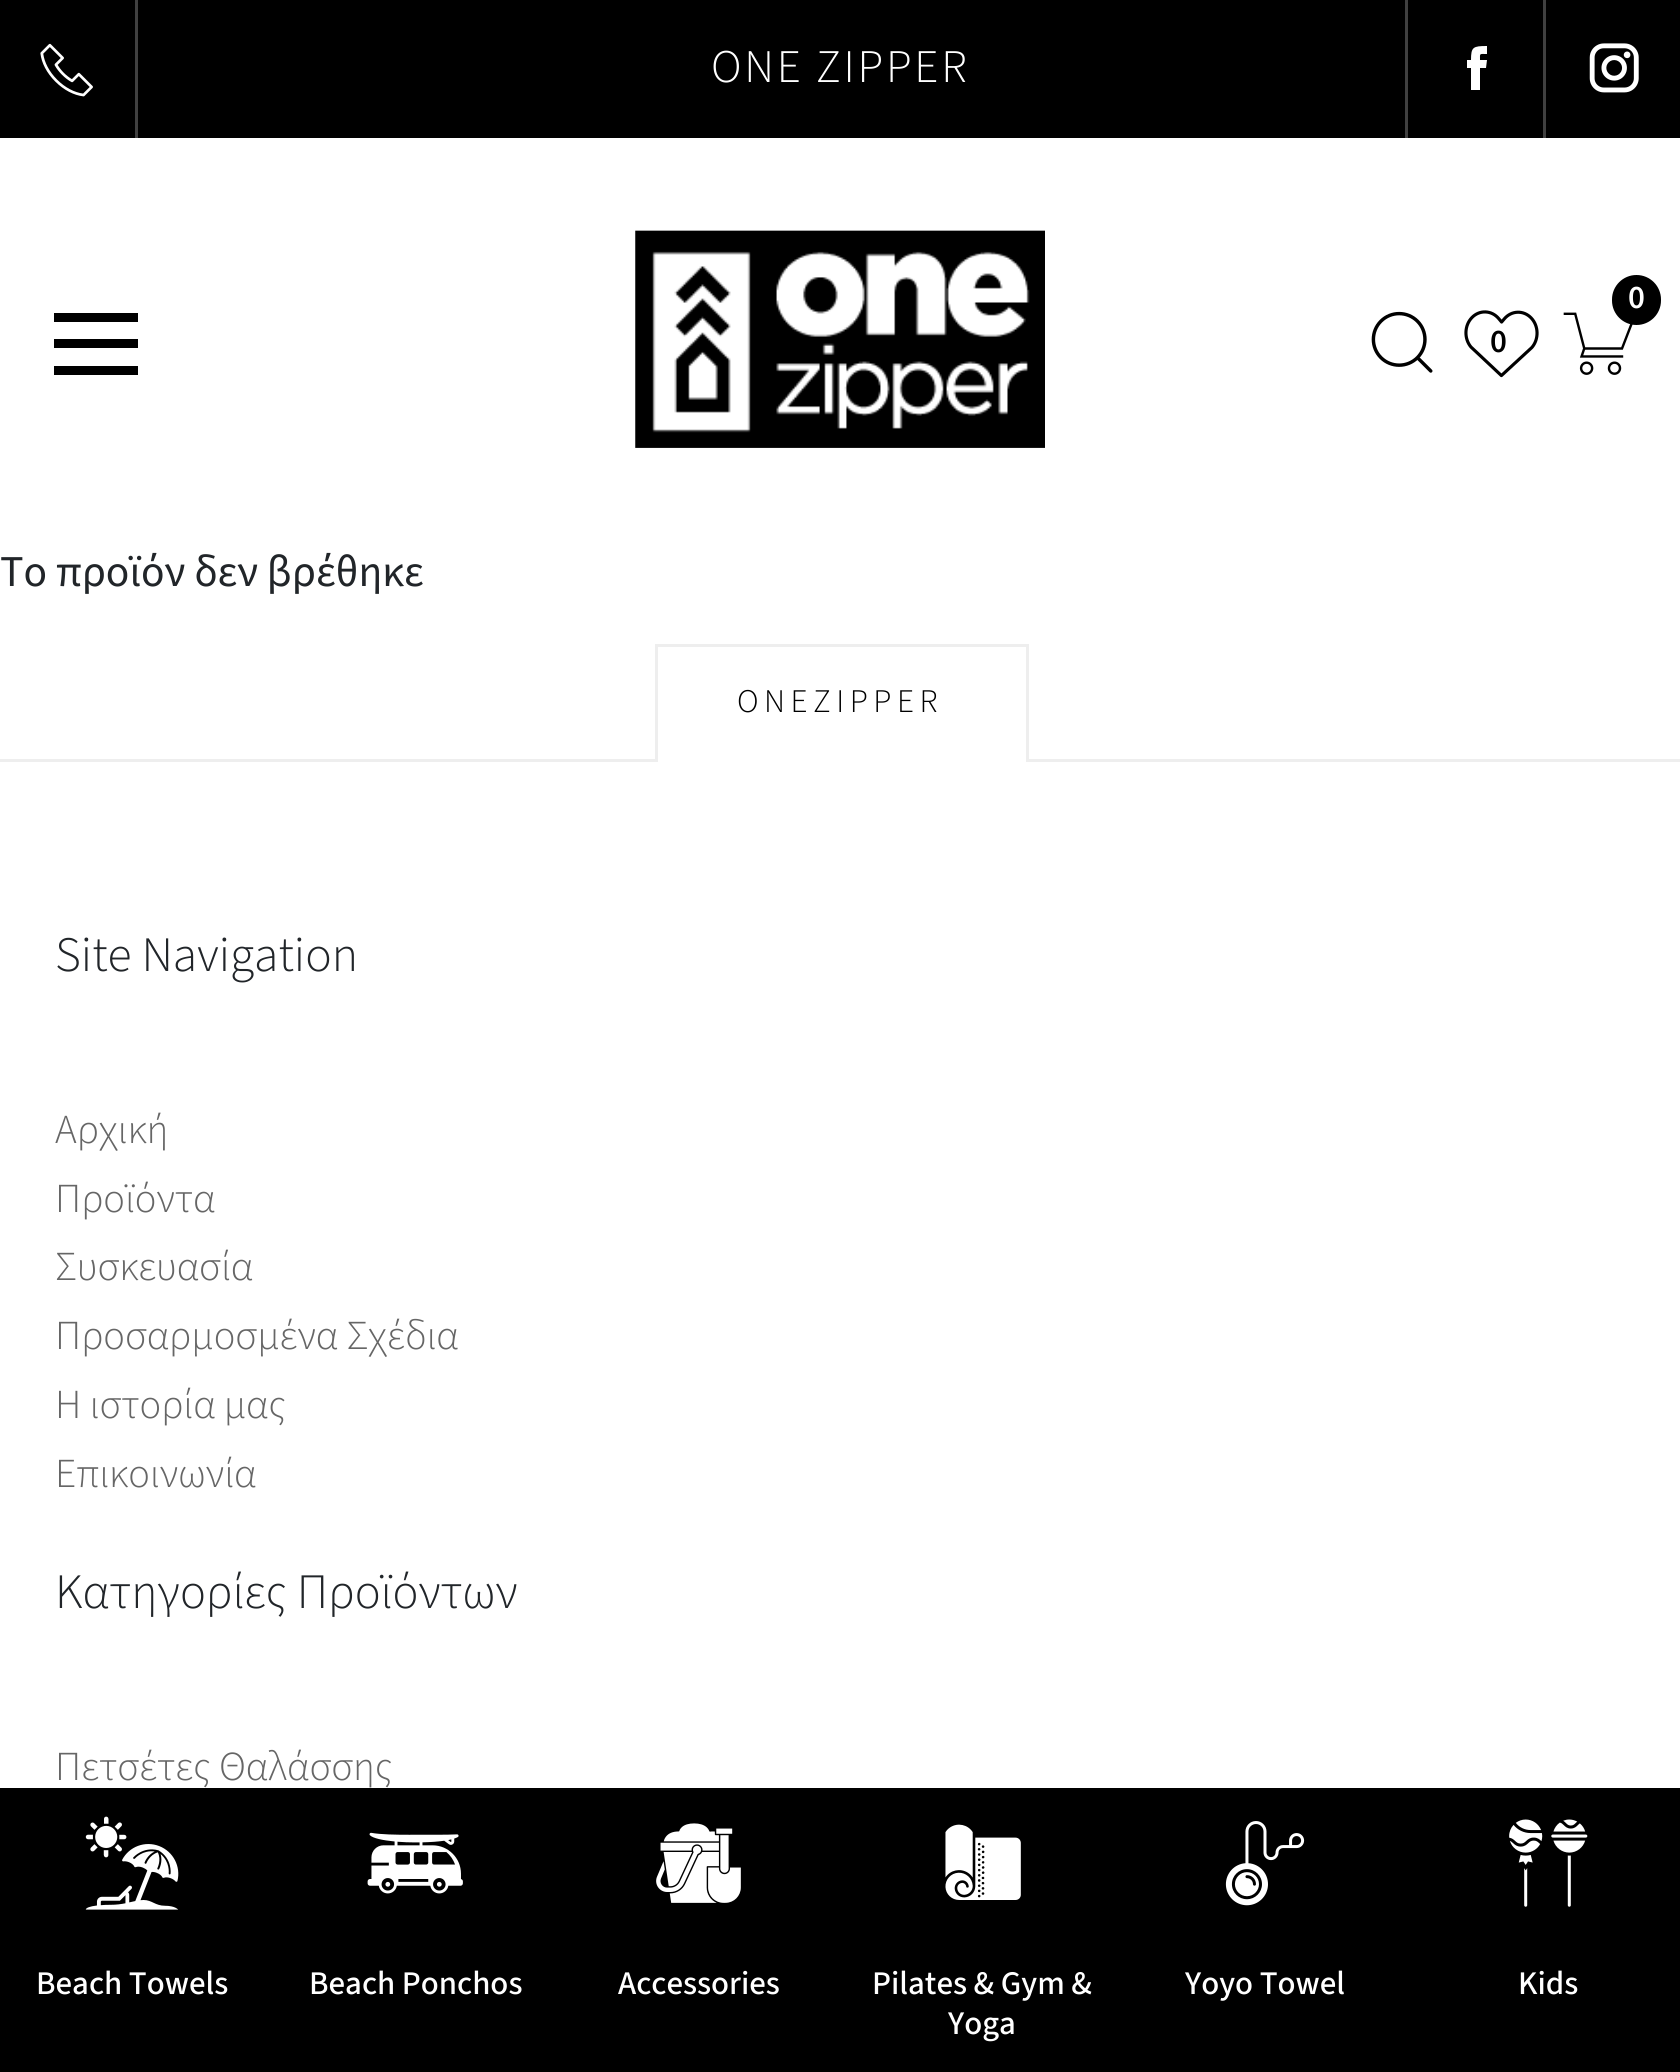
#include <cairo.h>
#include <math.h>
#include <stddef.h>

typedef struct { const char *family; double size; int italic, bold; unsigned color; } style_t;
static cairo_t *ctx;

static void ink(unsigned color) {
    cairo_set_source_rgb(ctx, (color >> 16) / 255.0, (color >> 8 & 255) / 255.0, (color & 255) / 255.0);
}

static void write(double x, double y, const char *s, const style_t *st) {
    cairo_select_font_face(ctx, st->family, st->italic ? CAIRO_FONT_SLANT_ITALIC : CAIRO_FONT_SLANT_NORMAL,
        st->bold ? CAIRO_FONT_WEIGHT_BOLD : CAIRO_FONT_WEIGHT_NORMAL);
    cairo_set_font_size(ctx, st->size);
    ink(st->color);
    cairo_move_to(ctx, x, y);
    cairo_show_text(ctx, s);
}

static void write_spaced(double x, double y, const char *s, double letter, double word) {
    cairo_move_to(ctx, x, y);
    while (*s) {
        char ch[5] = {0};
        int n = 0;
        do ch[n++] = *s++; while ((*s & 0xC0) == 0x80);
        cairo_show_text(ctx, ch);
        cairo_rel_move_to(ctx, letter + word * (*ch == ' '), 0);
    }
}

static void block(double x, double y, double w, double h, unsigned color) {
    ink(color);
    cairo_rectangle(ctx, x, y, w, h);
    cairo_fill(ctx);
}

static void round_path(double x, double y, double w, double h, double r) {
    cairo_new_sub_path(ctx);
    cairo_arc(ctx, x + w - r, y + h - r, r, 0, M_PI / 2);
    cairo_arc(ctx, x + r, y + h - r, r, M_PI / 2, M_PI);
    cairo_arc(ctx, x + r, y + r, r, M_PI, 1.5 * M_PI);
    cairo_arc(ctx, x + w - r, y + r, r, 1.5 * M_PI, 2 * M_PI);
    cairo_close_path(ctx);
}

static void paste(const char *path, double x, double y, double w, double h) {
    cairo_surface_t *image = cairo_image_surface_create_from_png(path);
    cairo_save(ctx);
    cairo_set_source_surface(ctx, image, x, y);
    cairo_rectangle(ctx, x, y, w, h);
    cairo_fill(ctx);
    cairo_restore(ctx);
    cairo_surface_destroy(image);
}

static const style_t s1 = {"Source Sans 3 SemiBold", 33, 0, 0, 0xffffff};
static const style_t s2 = {"Source Sans 3 SemiBold", 33, 0, 0, 0x000000};
static const style_t s3 = {"Source Sans 3", 44, 0, 0, 0x212529};
static const style_t s4 = {"Source Sans 3 Light", 49.5, 0, 0, 0x212529};
static const style_t s5 = {"Source Sans 3 Light", 41.25, 0, 0, 0x666666};
static const style_t s6 = {"Source Sans 3 Medium", 33, 0, 0, 0xffffff};

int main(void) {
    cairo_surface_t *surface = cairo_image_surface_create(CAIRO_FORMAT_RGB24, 1680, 2072);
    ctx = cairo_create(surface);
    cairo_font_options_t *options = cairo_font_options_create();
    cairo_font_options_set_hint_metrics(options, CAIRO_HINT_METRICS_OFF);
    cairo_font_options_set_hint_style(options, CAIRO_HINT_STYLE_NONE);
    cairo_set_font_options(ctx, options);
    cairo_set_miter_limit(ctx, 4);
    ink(0xffffff);
    cairo_paint(ctx);
    block(0, 0, 1680, 138, 0x000000);
    block(135, 0, 3, 138, 0x404040);
    paste("pic1.png", 40, 43, 53, 54);
    cairo_select_font_face(ctx, "Source Sans 3 Light", CAIRO_FONT_SLANT_NORMAL, CAIRO_FONT_WEIGHT_NORMAL);
    cairo_set_font_size(ctx, 46.75);
    ink(0xffffff);
    write_spaced(711, 82, "ONE ZIPPER", 2.75, 0);
    block(1405, 0, 3, 138, 0x404040);
    ink(0xffffff);
    cairo_new_path(ctx);
    cairo_move_to(ctx, 1487, 60);
    cairo_line_to(ctx, 1480, 60);
    cairo_curve_to(ctx, 1480, 53, 1479, 54, 1487, 54);
    cairo_line_to(ctx, 1487, 46);
    cairo_curve_to(ctx, 1473, 46, 1471, 47, 1471, 60);
    cairo_line_to(ctx, 1467, 60);
    cairo_line_to(ctx, 1467, 68);
    cairo_line_to(ctx, 1471, 68);
    cairo_line_to(ctx, 1471, 90);
    cairo_line_to(ctx, 1480, 90);
    cairo_line_to(ctx, 1480, 68);
    cairo_line_to(ctx, 1486, 68);
    cairo_close_path(ctx);
    cairo_fill(ctx);
    block(1543, 0, 3, 138, 0x404040);
    paste("pic2.png", 1589, 43, 50, 50);
    ink(0x000000);
    cairo_new_path(ctx);
    cairo_move_to(ctx, 54, 313);
    cairo_line_to(ctx, 54, 322);
    cairo_line_to(ctx, 138, 322);
    cairo_line_to(ctx, 138, 313);
    cairo_close_path(ctx);
    cairo_move_to(ctx, 54, 339);
    cairo_line_to(ctx, 54, 348);
    cairo_line_to(ctx, 138, 348);
    cairo_line_to(ctx, 138, 339);
    cairo_close_path(ctx);
    cairo_move_to(ctx, 54, 366);
    cairo_line_to(ctx, 54, 375);
    cairo_line_to(ctx, 138, 375);
    cairo_line_to(ctx, 138, 366);
    cairo_close_path(ctx);
    cairo_fill(ctx);
    paste("pic3.png", 635, 230, 410, 218);
    paste("pic4.png", 1563, 312, 70, 63);
    round_path(1612, 275, 49, 50, 24.5);
    cairo_fill(ctx);
    write(1628, 308, "0", &s1);
    paste("pic5.png", 1371, 311, 62, 62);
    paste("pic6.png", 1464, 310, 75, 68);
    write(1490, 352, "0", &s2);
    write(0, 586, "Το προϊόν δεν βρέθηκε", &s3);
    block(0, 759, 1680, 3, 0xeeeeee);
    block(658, 759, 368, 3, 0xffffff);
    block(655, 644, 374, 3, 0xeeeeee);
    block(1026, 644, 3, 118, 0xeeeeee);
    block(655, 644, 3, 118, 0xeeeeee);
    cairo_select_font_face(ctx, "Source Sans 3 Light", CAIRO_FONT_SLANT_NORMAL, CAIRO_FONT_WEIGHT_NORMAL);
    cairo_set_font_size(ctx, 33);
    ink(0x000000);
    write_spaced(737, 712, "ONEZIPPER", 5.5, 0);
    write(55, 971, "Site Navigation", &s4);
    write(55, 1143, "Αρχική", &s5);
    write(55, 1212, "Προϊόντα", &s5);
    write(55, 1280, "Συσκευασία", &s5);
    write(55, 1349, "Προσαρμοσμένα Σχέδια", &s5);
    write(55, 1418, "Η ιστορία μας", &s5);
    write(55, 1487, "Επικοινωνία", &s5);
    write(55, 1608, "Κατηγορίες Προϊόντων", &s4);
    write(55, 1780, "Πετσέτες Θαλάσσης", &s5);
    block(0, 1788, 1680, 284, 0x000000);
    paste("pic7.png", 85, 1816, 94, 94);
    write(36, 1994, "Beach Towels", &s6);
    paste("pic8.png", 367, 1832, 96, 62);
    write(309, 1994, "Beach Ponchos", &s6);
    paste("pic9.png", 656, 1823, 85, 80);
    write(618, 1994, "Accessories", &s6);
    paste("pic10.png", 945, 1824, 76, 76);
    write(872, 1994, "Pilates & Gym &", &s6);
    write(948, 2034, "Yoga", &s6);
    paste("pic11.png", 1225, 1821, 80, 85);
    write(1185, 1994, "Yoyo Towel", &s6);
    paste("pic12.png", 1509, 1819, 79, 88);
    write(1518, 1994, "Kids", &s6);
    cairo_surface_write_to_png(surface, "screenshot.png");
    cairo_font_options_destroy(options);
    cairo_destroy(ctx);
    cairo_surface_destroy(surface);
    return 0;
}
